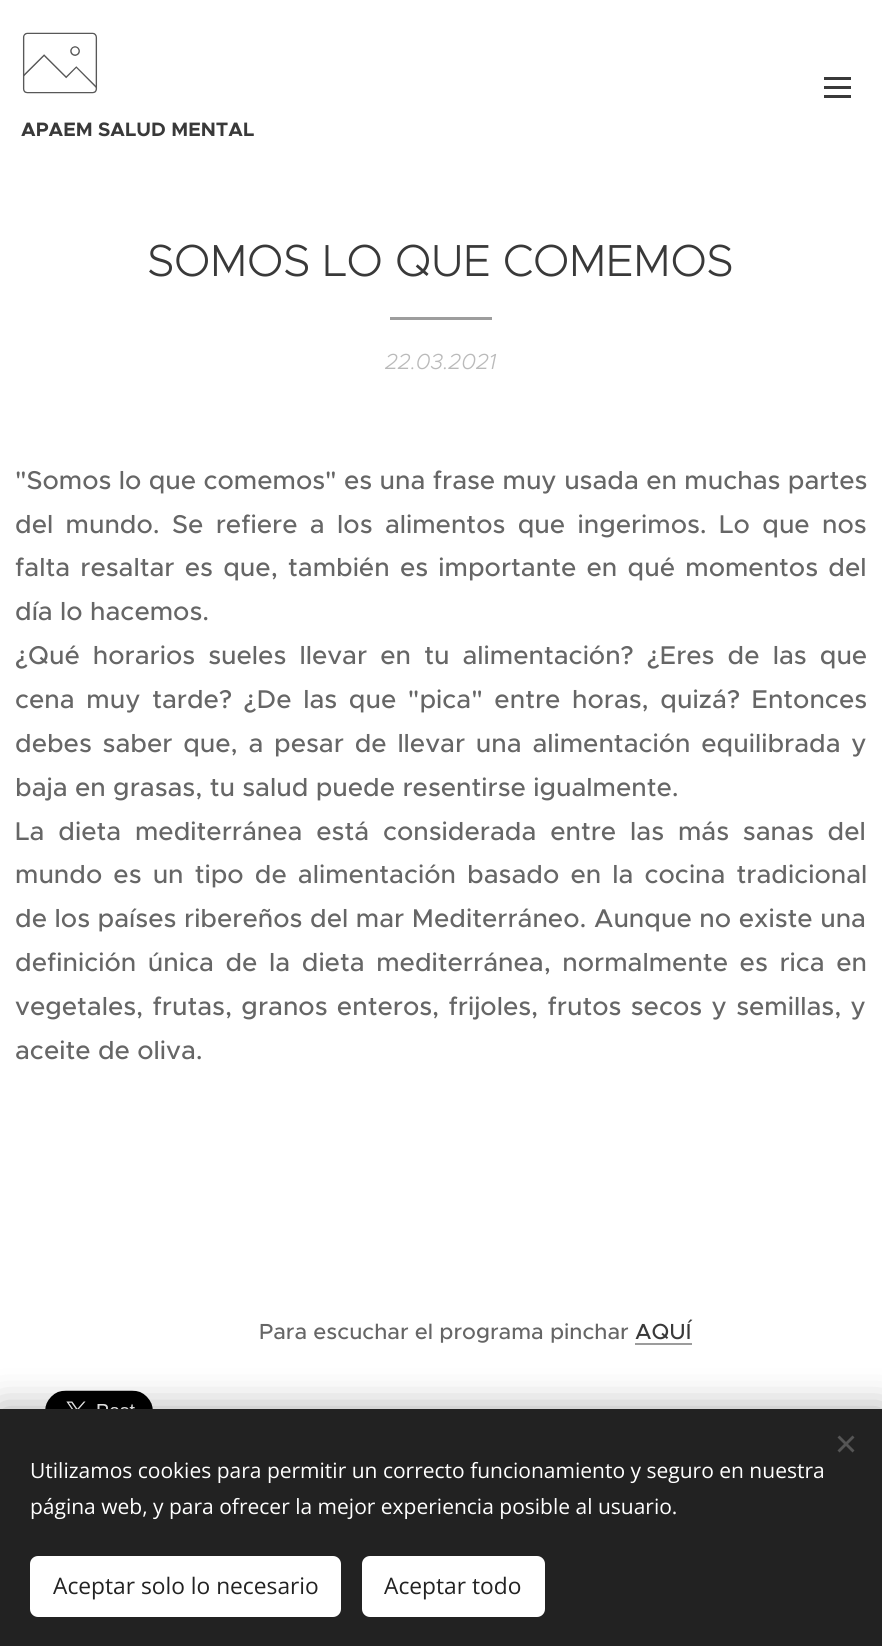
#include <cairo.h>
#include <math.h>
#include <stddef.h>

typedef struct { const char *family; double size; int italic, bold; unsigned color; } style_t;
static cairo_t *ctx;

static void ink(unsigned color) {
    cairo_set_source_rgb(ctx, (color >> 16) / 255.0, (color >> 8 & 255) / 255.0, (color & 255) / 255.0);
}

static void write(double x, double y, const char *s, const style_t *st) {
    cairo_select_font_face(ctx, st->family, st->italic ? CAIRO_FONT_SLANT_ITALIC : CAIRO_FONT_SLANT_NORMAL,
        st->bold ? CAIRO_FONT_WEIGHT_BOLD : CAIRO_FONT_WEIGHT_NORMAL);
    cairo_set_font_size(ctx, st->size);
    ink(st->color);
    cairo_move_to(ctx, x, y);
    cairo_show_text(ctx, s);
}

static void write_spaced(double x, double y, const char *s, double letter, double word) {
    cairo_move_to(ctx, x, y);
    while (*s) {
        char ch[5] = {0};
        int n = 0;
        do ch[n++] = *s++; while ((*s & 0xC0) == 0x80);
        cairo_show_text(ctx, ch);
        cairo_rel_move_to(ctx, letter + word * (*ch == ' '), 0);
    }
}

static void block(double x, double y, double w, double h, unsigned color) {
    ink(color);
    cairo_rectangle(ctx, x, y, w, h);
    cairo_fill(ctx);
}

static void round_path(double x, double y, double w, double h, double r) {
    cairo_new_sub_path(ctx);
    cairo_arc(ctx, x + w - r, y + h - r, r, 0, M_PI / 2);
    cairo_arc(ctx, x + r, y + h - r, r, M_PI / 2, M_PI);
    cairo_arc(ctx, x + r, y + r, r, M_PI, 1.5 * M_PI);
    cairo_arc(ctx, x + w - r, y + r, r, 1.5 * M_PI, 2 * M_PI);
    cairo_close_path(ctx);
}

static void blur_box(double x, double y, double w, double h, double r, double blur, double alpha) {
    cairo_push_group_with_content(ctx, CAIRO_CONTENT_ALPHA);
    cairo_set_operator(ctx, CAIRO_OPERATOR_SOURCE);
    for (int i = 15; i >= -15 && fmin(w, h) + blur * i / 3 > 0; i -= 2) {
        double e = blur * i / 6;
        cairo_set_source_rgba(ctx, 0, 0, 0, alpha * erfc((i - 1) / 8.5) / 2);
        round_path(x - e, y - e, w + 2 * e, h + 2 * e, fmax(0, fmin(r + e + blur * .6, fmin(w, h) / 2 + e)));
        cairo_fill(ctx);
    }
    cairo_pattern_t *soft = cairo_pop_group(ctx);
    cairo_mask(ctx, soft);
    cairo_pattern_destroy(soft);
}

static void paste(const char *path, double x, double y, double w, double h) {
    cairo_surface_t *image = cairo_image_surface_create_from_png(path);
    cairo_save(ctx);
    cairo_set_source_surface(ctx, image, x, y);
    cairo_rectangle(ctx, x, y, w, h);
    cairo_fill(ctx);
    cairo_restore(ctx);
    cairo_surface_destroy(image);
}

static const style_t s1 = {"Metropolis", 19.5, 0, 1, 0x393939};
static const style_t s2 = {"Metropolis Light", 21.9, 1, 0, 0xbababa};
static const style_t s3 = {"Metropolis Medium", 25.8, 0, 0, 0x666666};
static const style_t s4 = {"Metropolis Medium", 21.9, 0, 0, 0x666666};
static const style_t s5 = {"Metropolis Medium", 21.9, 0, 0, 0x393939};
static const style_t s6 = {"Open Sans", 21, 0, 0, 0xffffff};
static const style_t s7 = {"Open Sans", 22.75, 0, 0, 0x222222};

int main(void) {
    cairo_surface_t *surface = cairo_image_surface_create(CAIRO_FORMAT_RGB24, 882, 1646);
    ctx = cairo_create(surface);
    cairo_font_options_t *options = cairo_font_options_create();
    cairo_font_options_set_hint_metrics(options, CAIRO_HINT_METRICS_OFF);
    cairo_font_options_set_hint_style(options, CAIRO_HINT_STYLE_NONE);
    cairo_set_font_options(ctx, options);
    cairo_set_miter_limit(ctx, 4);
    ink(0xffffff);
    cairo_paint(ctx);
    block(824, 86, 27, 3, 0x393939);
    block(824, 77, 27, 3, 0x393939);
    block(824, 95, 27, 3, 0x393939);
    paste("pic1.png", 22, 32, 76, 62);
    write(21, 136, "APAEM SALUD MENTAL", &s1);
    cairo_select_font_face(ctx, "Metropolis Light", CAIRO_FONT_SLANT_NORMAL, CAIRO_FONT_WEIGHT_NORMAL);
    cairo_set_font_size(ctx, 45);
    write_spaced(147, 276, "SOMOS LO QUE COMEMOS", -0.5, 0);
    block(390, 317, 102, 3, 0x9d9d9d);
    write(385, 369, "22.03.2021", &s2);
    write(15, 489, "\"Somos lo que comemos\" es una frase muy usada en muchas partes", &s3);
    write_spaced(15, 533, "del mundo. Se refiere a los alimentos que ingerimos. Lo que nos", 0, 5);
    write_spaced(15, 576, "falta resaltar es que, también es importante en qué momentos del", 0, 2.9);
    write(15, 620, "día lo hacemos.", &s3);
    write_spaced(15, 664, "¿Qué horarios sueles llevar en tu alimentación? ¿Eres de las que", 0, 5.75);
    write_spaced(15, 708, "cena muy tarde? ¿De las que \"pica\" entre horas, quizá? Entonces", 0, 4.25);
    write_spaced(15, 752, "debes saber que, a pesar de llevar una alimentación equilibrada y", 0, 3.4);
    write(15, 796, "baja en grasas, tu salud puede resentirse igualmente.", &s3);
    write_spaced(15, 840, "La dieta mediterránea está considerada entre las más sanas del", 0, 6.5);
    write_spaced(15, 883, "mundo es un tipo de alimentación basado en la cocina tradicional", 0, 3.75);
    write_spaced(15, 927, "de los países ribereños del mar Mediterráneo. Aunque no existe una", 0, 0.25);
    write_spaced(15, 971, "definición única de la dieta mediterránea, normalmente es rica en", 0, 4.25);
    write_spaced(15, 1015, "vegetales, frutas, granos enteros, frijoles, frutos secos y semillas, y", 0, 2);
    write(15, 1059, "aceite de oliva.", &s3);
    write(259, 1339, "Para escuchar el programa pinchar", &s4);
    write(635, 1339, "AQUÍ", &s5);
    block(635, 1343, 57, 2, 0x9c9c9c);
    paste("pic2.png", 45, 1390, 108, 19);
    ink(0x000000);
    blur_box(0, 1409, 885, 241, 0, 19, 0.33);
    block(0, 1409, 882, 237, 0x222222);
    ink(0x555555);
    cairo_new_path(ctx);
    cairo_move_to(ctx, 837.5, 1450.5);
    cairo_line_to(ctx, 852.5, 1435.5);
    cairo_line_to(ctx, 854.5, 1437.5);
    cairo_line_to(ctx, 839.5, 1452.5);
    cairo_close_path(ctx);
    cairo_fill(ctx);
    cairo_new_path(ctx);
    cairo_move_to(ctx, 839.5, 1435.5);
    cairo_line_to(ctx, 854.5, 1450.5);
    cairo_line_to(ctx, 852.5, 1452.5);
    cairo_line_to(ctx, 837.5, 1437.5);
    cairo_close_path(ctx);
    cairo_fill(ctx);
    write(30, 1478, "Utilizamos cookies para permitir un correcto funcionamiento y seguro en nuestra", &s6);
    write(30, 1514, "página web, y para ofrecer la mejor experiencia posible al usuario.", &s6);
    round_path(30, 1556, 311, 61, 8);
    cairo_fill(ctx);
    write(53, 1594, "Aceptar solo lo necesario", &s7);
    ink(0xffffff);
    round_path(362, 1556, 183, 61, 8);
    cairo_fill(ctx);
    write(384, 1594, "Aceptar todo", &s7);
    cairo_surface_write_to_png(surface, "screenshot.png");
    cairo_font_options_destroy(options);
    cairo_destroy(ctx);
    cairo_surface_destroy(surface);
    return 0;
}
